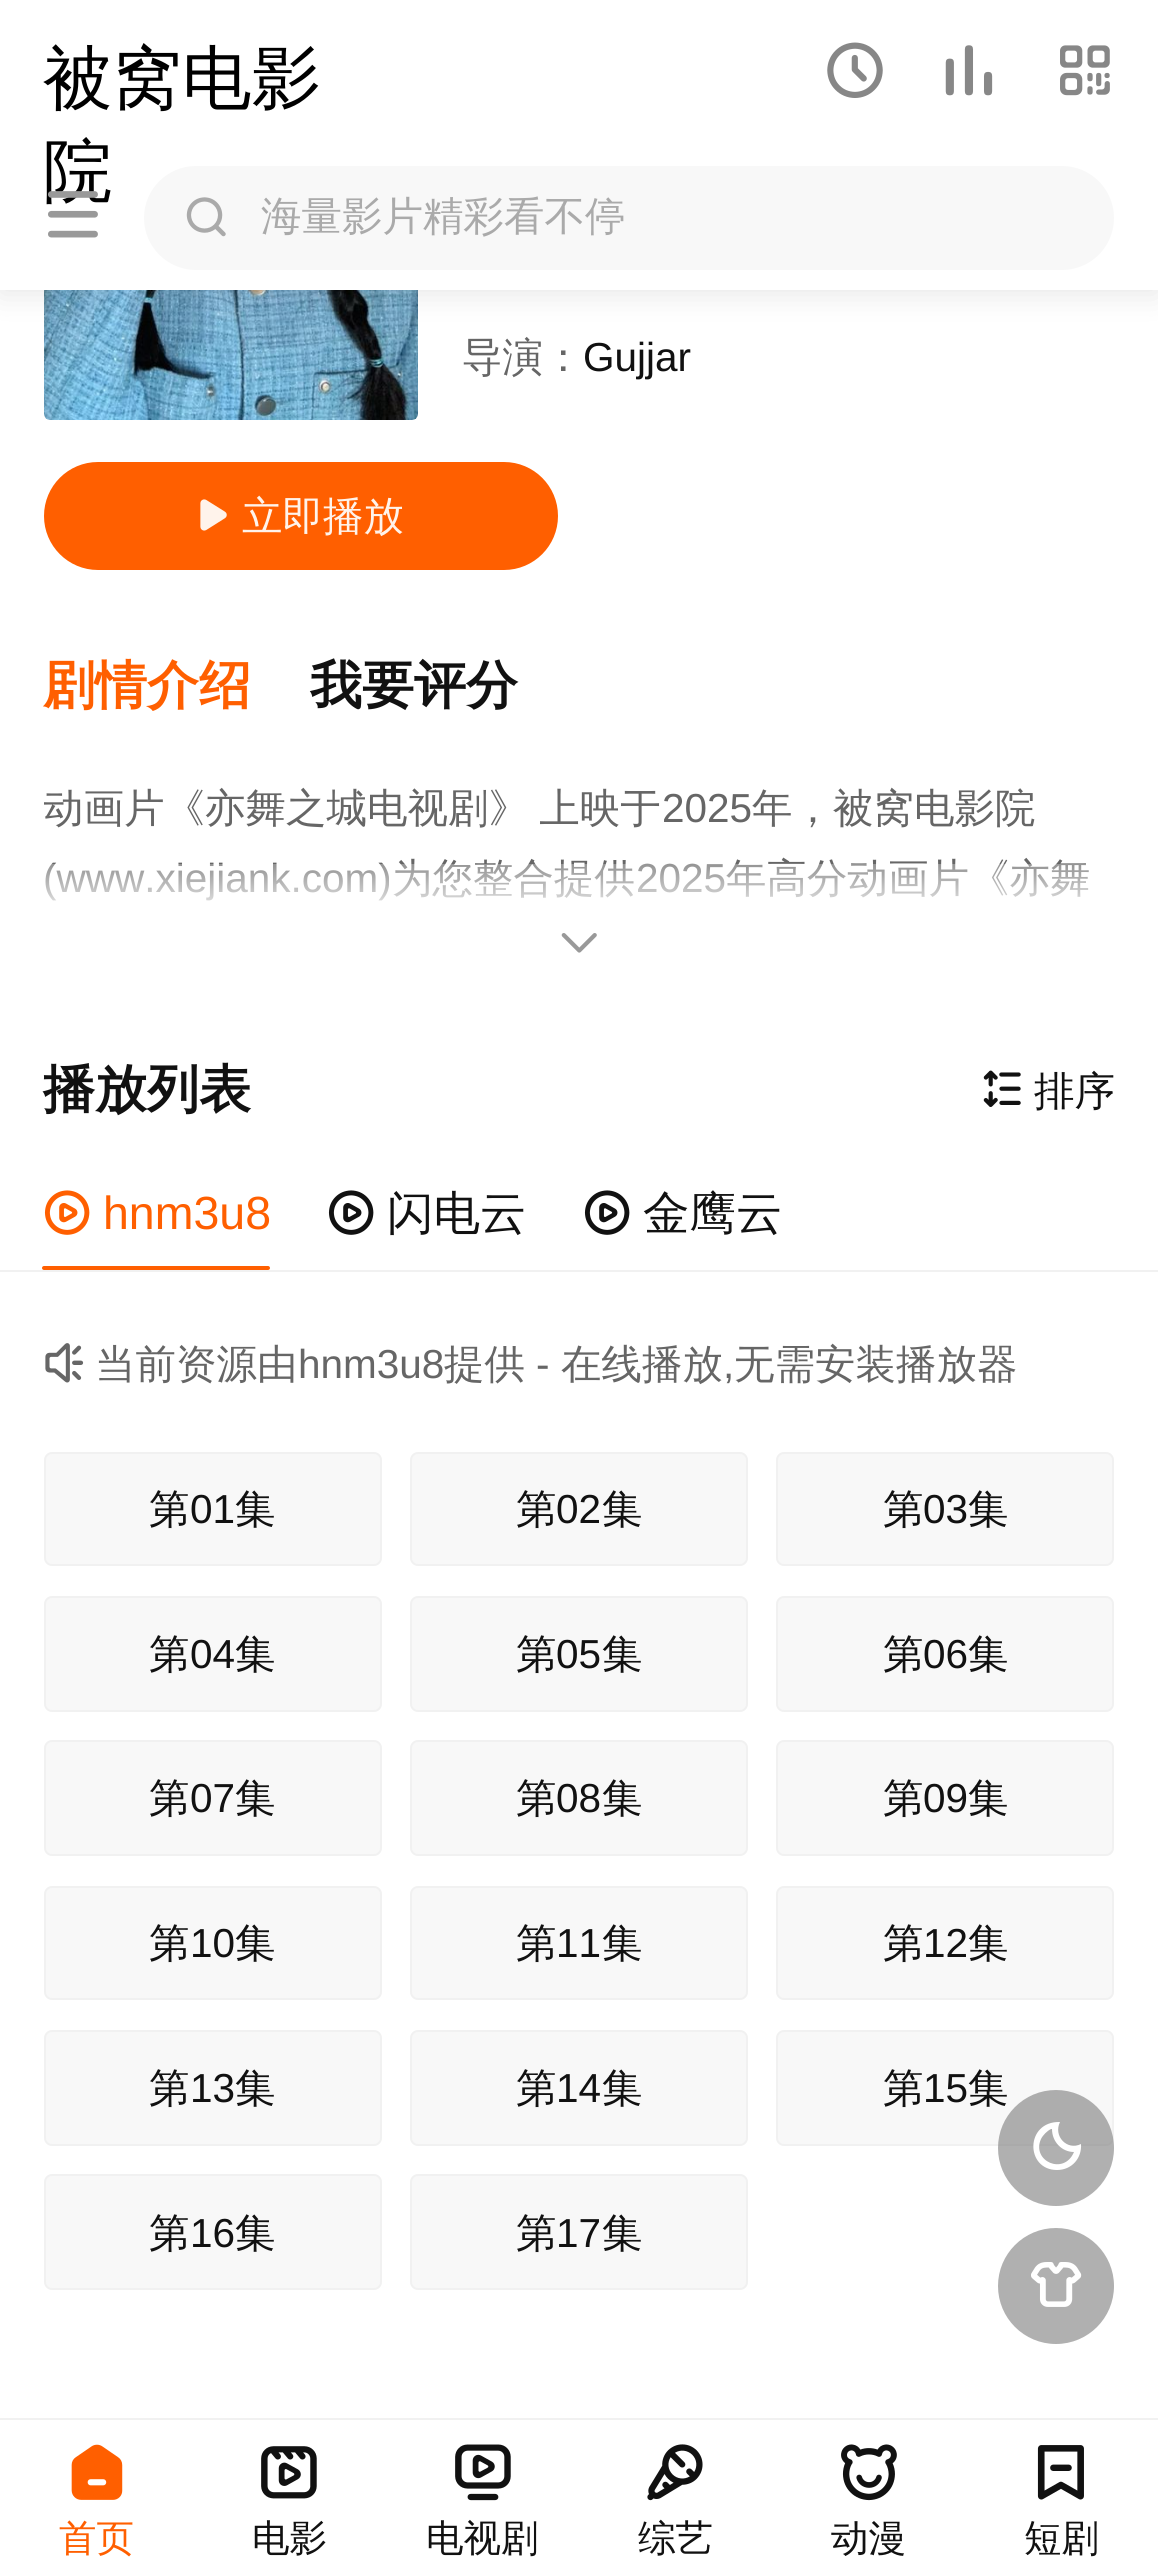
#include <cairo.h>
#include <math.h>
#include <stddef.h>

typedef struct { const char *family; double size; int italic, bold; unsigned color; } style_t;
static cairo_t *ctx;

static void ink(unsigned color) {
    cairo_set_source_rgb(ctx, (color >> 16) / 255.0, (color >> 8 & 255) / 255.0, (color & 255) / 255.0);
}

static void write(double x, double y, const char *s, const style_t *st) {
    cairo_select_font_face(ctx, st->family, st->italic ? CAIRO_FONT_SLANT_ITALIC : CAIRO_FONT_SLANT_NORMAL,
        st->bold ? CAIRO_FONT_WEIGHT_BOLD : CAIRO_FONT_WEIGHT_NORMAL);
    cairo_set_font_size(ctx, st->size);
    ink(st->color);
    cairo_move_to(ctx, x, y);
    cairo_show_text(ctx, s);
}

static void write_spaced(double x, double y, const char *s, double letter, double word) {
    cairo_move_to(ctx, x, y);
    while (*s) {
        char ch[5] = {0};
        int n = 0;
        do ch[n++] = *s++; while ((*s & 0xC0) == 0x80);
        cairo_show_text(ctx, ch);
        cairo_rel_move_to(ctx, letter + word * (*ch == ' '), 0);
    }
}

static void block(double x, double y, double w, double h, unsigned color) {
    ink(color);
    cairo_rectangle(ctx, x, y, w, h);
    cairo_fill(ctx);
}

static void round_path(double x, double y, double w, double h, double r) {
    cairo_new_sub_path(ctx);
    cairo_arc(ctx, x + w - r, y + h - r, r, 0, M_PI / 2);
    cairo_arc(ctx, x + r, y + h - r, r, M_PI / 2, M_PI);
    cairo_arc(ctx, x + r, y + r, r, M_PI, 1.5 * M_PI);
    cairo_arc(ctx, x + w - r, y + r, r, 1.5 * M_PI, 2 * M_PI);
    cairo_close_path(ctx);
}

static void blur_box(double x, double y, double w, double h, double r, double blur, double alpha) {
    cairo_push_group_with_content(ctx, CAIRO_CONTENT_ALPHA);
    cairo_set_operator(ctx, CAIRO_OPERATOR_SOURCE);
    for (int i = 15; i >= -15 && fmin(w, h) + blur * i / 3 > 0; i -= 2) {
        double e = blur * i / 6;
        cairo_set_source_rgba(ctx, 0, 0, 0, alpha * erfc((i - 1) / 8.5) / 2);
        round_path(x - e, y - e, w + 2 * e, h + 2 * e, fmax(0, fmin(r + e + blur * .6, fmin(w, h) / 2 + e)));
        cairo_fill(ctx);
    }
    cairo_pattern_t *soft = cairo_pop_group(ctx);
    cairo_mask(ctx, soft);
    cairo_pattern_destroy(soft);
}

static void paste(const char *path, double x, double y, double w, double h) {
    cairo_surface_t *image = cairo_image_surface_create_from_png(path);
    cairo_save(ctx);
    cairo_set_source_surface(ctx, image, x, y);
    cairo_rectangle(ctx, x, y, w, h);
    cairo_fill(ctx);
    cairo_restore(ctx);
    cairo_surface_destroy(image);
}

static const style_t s1 = {"WenQuanYi Zen Hei Medium", 69.5, 0, 0, 0x000000};
static const style_t s2 = {"WenQuanYi Zen Hei Medium", 40.5, 0, 0, 0xaaaaaa};
static const style_t s3 = {"WenQuanYi Zen Hei Medium", 40.5, 0, 0, 0x666666};
static const style_t s4 = {"Liberation Sans", 40.5, 0, 0, 0x111111};
static const style_t s5 = {"WenQuanYi Zen Hei Medium", 40.5, 0, 0, 0xfff3eb};
static const style_t s6 = {"WenQuanYi Zen Hei", 52, 0, 1, 0xff5f00};
static const style_t s7 = {"WenQuanYi Zen Hei", 52, 0, 1, 0x111111};
static const style_t s8 = {"Liberation Sans", 40.5, 0, 0, 0x666666};
static const style_t s9 = {"WenQuanYi Zen Hei Medium", 40.5, 0, 0, 0x111111};
static const style_t s10 = {"Liberation Sans", 46.5, 0, 0, 0xff5f00};
static const style_t s11 = {"WenQuanYi Zen Hei Medium", 46.5, 0, 0, 0x111111};
static const style_t s12 = {"WenQuanYi Zen Hei Medium", 37.5, 0, 0, 0xff5f00};
static const style_t s13 = {"WenQuanYi Zen Hei Medium", 37.5, 0, 0, 0x111111};

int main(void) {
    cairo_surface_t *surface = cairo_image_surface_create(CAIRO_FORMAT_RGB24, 1158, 2575);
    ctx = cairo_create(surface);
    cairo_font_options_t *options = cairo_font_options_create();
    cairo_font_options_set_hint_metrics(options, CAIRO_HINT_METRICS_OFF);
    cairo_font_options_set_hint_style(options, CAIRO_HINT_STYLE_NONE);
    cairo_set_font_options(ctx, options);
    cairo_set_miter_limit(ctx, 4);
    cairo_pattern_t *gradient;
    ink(0xffffff);
    cairo_paint(ctx);
    paste("pic6.png", 44, 290, 374, 130);
    ink(0x000000);
    blur_box(0, 4, 1158, 290, 0, 15, 0.1);
    block(0, 0, 1158, 290, 0xffffff);
    write(43, 102, "被窝电影", &s1);
    write(43, 195, "院", &s1);
    paste("pic1.png", 827, 42, 56, 56);
    paste("pic2.png", 945, 45, 48, 51);
    paste("pic3.png", 1060, 45, 50, 51);
    paste("pic4.png", 48, 191, 50, 47);
    ink(0xf8f8f8);
    round_path(144, 166, 970, 104, 52);
    cairo_fill(ctx);
    paste("pic5.png", 186, 197, 40, 40);
    write(261, 230, "海量影片精彩看不停", &s2);
    write(462, 371, "导演：", &s3);
    write(583, 371, "Gujjar", &s4);
    ink(0xff5f00);
    round_path(45, 463, 512, 106, 53);
    cairo_fill_preserve(ctx);
    cairo_stroke(ctx);
    paste("pic7.png", 200, 499, 27, 32);
    write(242, 530, "立即播放", &s5);
    write(43, 703, "剧情介绍", &s6);
    write(310, 703, "我要评分", &s7);
    cairo_save(ctx);
    cairo_rectangle(ctx, 44, 774, 1072, 194);
    cairo_clip(ctx);
    cairo_select_font_face(ctx, "WenQuanYi Zen Hei Medium", CAIRO_FONT_SLANT_NORMAL, CAIRO_FONT_WEIGHT_NORMAL);
    cairo_set_font_size(ctx, 40.5);
    ink(0x666666);
    write_spaced(43, 822, "动画片《亦舞之城电视剧》 上映于", 0, -2);
    cairo_restore(ctx);
    write(662, 822, "2025", &s8);
    write(752, 822, "年，被窝电影院", &s3);
    write(43, 892, "(www.xiejiank.com)", &s8);
    write(392, 892, "为您整合提供", &s3);
    write(636, 892, "2025", &s8);
    write(726, 892, "年高分动画片《亦舞", &s3);
    gradient = cairo_pattern_create_linear(580, 864, 580, 922);
    cairo_pattern_add_color_stop_rgba(gradient, 0, 1, 1, 1, 0.3);
    cairo_pattern_add_color_stop_rgba(gradient, 1, 1, 1, 1, 1);
    cairo_set_source(ctx, gradient);
    cairo_pattern_destroy(gradient);
    cairo_rectangle(ctx, 45, 864, 1044, 37);
    cairo_fill(ctx);
    paste("pic8.png", 561, 933, 36, 20);
    write(43, 1107, "播放列表", &s7);
    paste("pic9.png", 983, 1070, 38, 37);
    write(1034, 1105, "排序", &s9);
    block(0, 1270, 1158, 2, 0xf1f1f1);
    paste("pic10.png", 44, 1190, 46, 45);
    write(103, 1229, "hnm3u8", &s10);
    round_path(42, 1266, 228, 4, 2);
    cairo_fill(ctx);
    paste("pic11.png", 328, 1190, 46, 45);
    write(387, 1229, "闪电云", &s11);
    paste("pic11.png", 584, 1190, 46, 45);
    write(643, 1229, "金鹰云", &s11);
    paste("pic12.png", 45, 1343, 39, 40);
    write(95, 1378, "当前资源由", &s3);
    write(298, 1378, "hnm3u8", &s8);
    write(444, 1378, "提供", &s3);
    write(536, 1378, "-", &s8);
    write(561, 1378, "在线播放", &s3);
    write(734, 1378, "无需安装播放器", &s3);
    write(723, 1378, ",", &s8);
    ink(0xf8f8f8);
    round_path(45, 1453, 336, 112, 7);
    cairo_fill_preserve(ctx);
    ink(0xf1f1f1);
    cairo_stroke(ctx);
    write(149, 1523, "第", &s9);
    write(190, 1523, "01", &s4);
    write(235, 1523, "集", &s9);
    ink(0xf8f8f8);
    round_path(411, 1453, 336, 112, 7);
    cairo_fill_preserve(ctx);
    ink(0xf1f1f1);
    cairo_stroke(ctx);
    write(516, 1523, "第", &s9);
    write(556, 1523, "02", &s4);
    write(602, 1523, "集", &s9);
    ink(0xf8f8f8);
    round_path(777, 1453, 336, 112, 7);
    cairo_fill_preserve(ctx);
    ink(0xf1f1f1);
    cairo_stroke(ctx);
    write(883, 1523, "第", &s9);
    write(923, 1523, "03", &s4);
    write(968, 1523, "集", &s9);
    ink(0xf8f8f8);
    round_path(45, 1597, 336, 114, 7);
    cairo_fill_preserve(ctx);
    ink(0xf1f1f1);
    cairo_stroke(ctx);
    write(149, 1668, "第", &s9);
    write(190, 1668, "04", &s4);
    write(235, 1668, "集", &s9);
    ink(0xf8f8f8);
    round_path(411, 1597, 336, 114, 7);
    cairo_fill_preserve(ctx);
    ink(0xf1f1f1);
    cairo_stroke(ctx);
    write(516, 1668, "第", &s9);
    write(556, 1668, "05", &s4);
    write(602, 1668, "集", &s9);
    ink(0xf8f8f8);
    round_path(777, 1597, 336, 114, 7);
    cairo_fill_preserve(ctx);
    ink(0xf1f1f1);
    cairo_stroke(ctx);
    write(883, 1668, "第", &s9);
    write(923, 1668, "06", &s4);
    write(968, 1668, "集", &s9);
    ink(0xf8f8f8);
    round_path(45, 1741, 336, 114, 7);
    cairo_fill_preserve(ctx);
    ink(0xf1f1f1);
    cairo_stroke(ctx);
    write(149, 1812, "第", &s9);
    write(190, 1812, "07", &s4);
    write(235, 1812, "集", &s9);
    ink(0xf8f8f8);
    round_path(411, 1741, 336, 114, 7);
    cairo_fill_preserve(ctx);
    ink(0xf1f1f1);
    cairo_stroke(ctx);
    write(516, 1812, "第", &s9);
    write(556, 1812, "08", &s4);
    write(602, 1812, "集", &s9);
    ink(0xf8f8f8);
    round_path(777, 1741, 336, 114, 7);
    cairo_fill_preserve(ctx);
    ink(0xf1f1f1);
    cairo_stroke(ctx);
    write(883, 1812, "第", &s9);
    write(923, 1812, "09", &s4);
    write(968, 1812, "集", &s9);
    ink(0xf8f8f8);
    round_path(45, 1887, 336, 112, 7);
    cairo_fill_preserve(ctx);
    ink(0xf1f1f1);
    cairo_stroke(ctx);
    write(149, 1957, "第", &s9);
    write(190, 1957, "10", &s4);
    write(235, 1957, "集", &s9);
    ink(0xf8f8f8);
    round_path(411, 1887, 336, 112, 7);
    cairo_fill_preserve(ctx);
    ink(0xf1f1f1);
    cairo_stroke(ctx);
    write(516, 1957, "第", &s9);
    write(556, 1957, "11", &s4);
    write(602, 1957, "集", &s9);
    ink(0xf8f8f8);
    round_path(777, 1887, 336, 112, 7);
    cairo_fill_preserve(ctx);
    ink(0xf1f1f1);
    cairo_stroke(ctx);
    write(883, 1957, "第", &s9);
    write(923, 1957, "12", &s4);
    write(968, 1957, "集", &s9);
    ink(0xf8f8f8);
    round_path(45, 2031, 336, 114, 7);
    cairo_fill_preserve(ctx);
    ink(0xf1f1f1);
    cairo_stroke(ctx);
    write(149, 2102, "第", &s9);
    write(190, 2102, "13", &s4);
    write(235, 2102, "集", &s9);
    ink(0xf8f8f8);
    round_path(411, 2031, 336, 114, 7);
    cairo_fill_preserve(ctx);
    ink(0xf1f1f1);
    cairo_stroke(ctx);
    write(516, 2102, "第", &s9);
    write(556, 2102, "14", &s4);
    write(602, 2102, "集", &s9);
    ink(0xf8f8f8);
    round_path(777, 2031, 336, 114, 7);
    cairo_fill_preserve(ctx);
    ink(0xf1f1f1);
    cairo_stroke(ctx);
    write(883, 2102, "第", &s9);
    write(923, 2102, "15", &s4);
    write(968, 2102, "集", &s9);
    ink(0xf8f8f8);
    round_path(45, 2175, 336, 114, 7);
    cairo_fill_preserve(ctx);
    ink(0xf1f1f1);
    cairo_stroke(ctx);
    write(149, 2247, "第", &s9);
    write(190, 2247, "16", &s4);
    write(235, 2247, "集", &s9);
    ink(0xf8f8f8);
    round_path(411, 2175, 336, 114, 7);
    cairo_fill_preserve(ctx);
    ink(0xf1f1f1);
    cairo_stroke(ctx);
    write(516, 2247, "第", &s9);
    write(556, 2247, "17", &s4);
    write(602, 2247, "集", &s9);
    cairo_set_source_rgba(ctx, 0.482, 0.482, 0.482, 0.6);
    cairo_new_path(ctx);
    cairo_arc(ctx, 1056, 2148, 58, 0, 2 * M_PI);
    cairo_fill(ctx);
    ink(0xffffff);
    cairo_new_path(ctx);
    cairo_move_to(ctx, 1057, 2170);
    cairo_curve_to(ctx, 1025, 2170, 1025, 2121, 1060, 2122);
    cairo_curve_to(ctx, 1053, 2136, 1067, 2151, 1081, 2144);
    cairo_curve_to(ctx, 1082, 2158, 1072, 2170, 1057, 2170);
    cairo_close_path(ctx);
    cairo_move_to(ctx, 1051, 2129);
    cairo_curve_to(ctx, 1047, 2131, 1043, 2135, 1041, 2139);
    cairo_curve_to(ctx, 1031, 2161, 1064, 2176, 1074, 2152);
    cairo_curve_to(ctx, 1062, 2152, 1052, 2142, 1052, 2129);
    cairo_close_path(ctx);
    cairo_fill(ctx);
    ink(0xb0b0b0);
    cairo_arc(ctx, 1056, 2286, 58, 0, 2 * M_PI);
    cairo_fill(ctx);
    paste("pic13.png", 1031, 2262, 51, 45);
    block(0, 2418, 1158, 2, 0xf1f1f1);
    paste("pic14.png", 71, 2444, 52, 56);
    write(59, 2551, "首页", &s12);
    paste("pic15.png", 261, 2446, 56, 53);
    write(252, 2551, "电影", &s13);
    paste("pic16.png", 455, 2444, 56, 57);
    write(426, 2551, "电视剧", &s13);
    paste("pic17.png", 647, 2444, 56, 57);
    write(638, 2551, "综艺", &s13);
    paste("pic18.png", 841, 2444, 56, 57);
    write(831, 2551, "动漫", &s13);
    paste("pic19.png", 1037, 2445, 47, 55);
    write(1024, 2551, "短剧", &s13);
    cairo_surface_write_to_png(surface, "screenshot.png");
    cairo_font_options_destroy(options);
    cairo_destroy(ctx);
    cairo_surface_destroy(surface);
    return 0;
}
